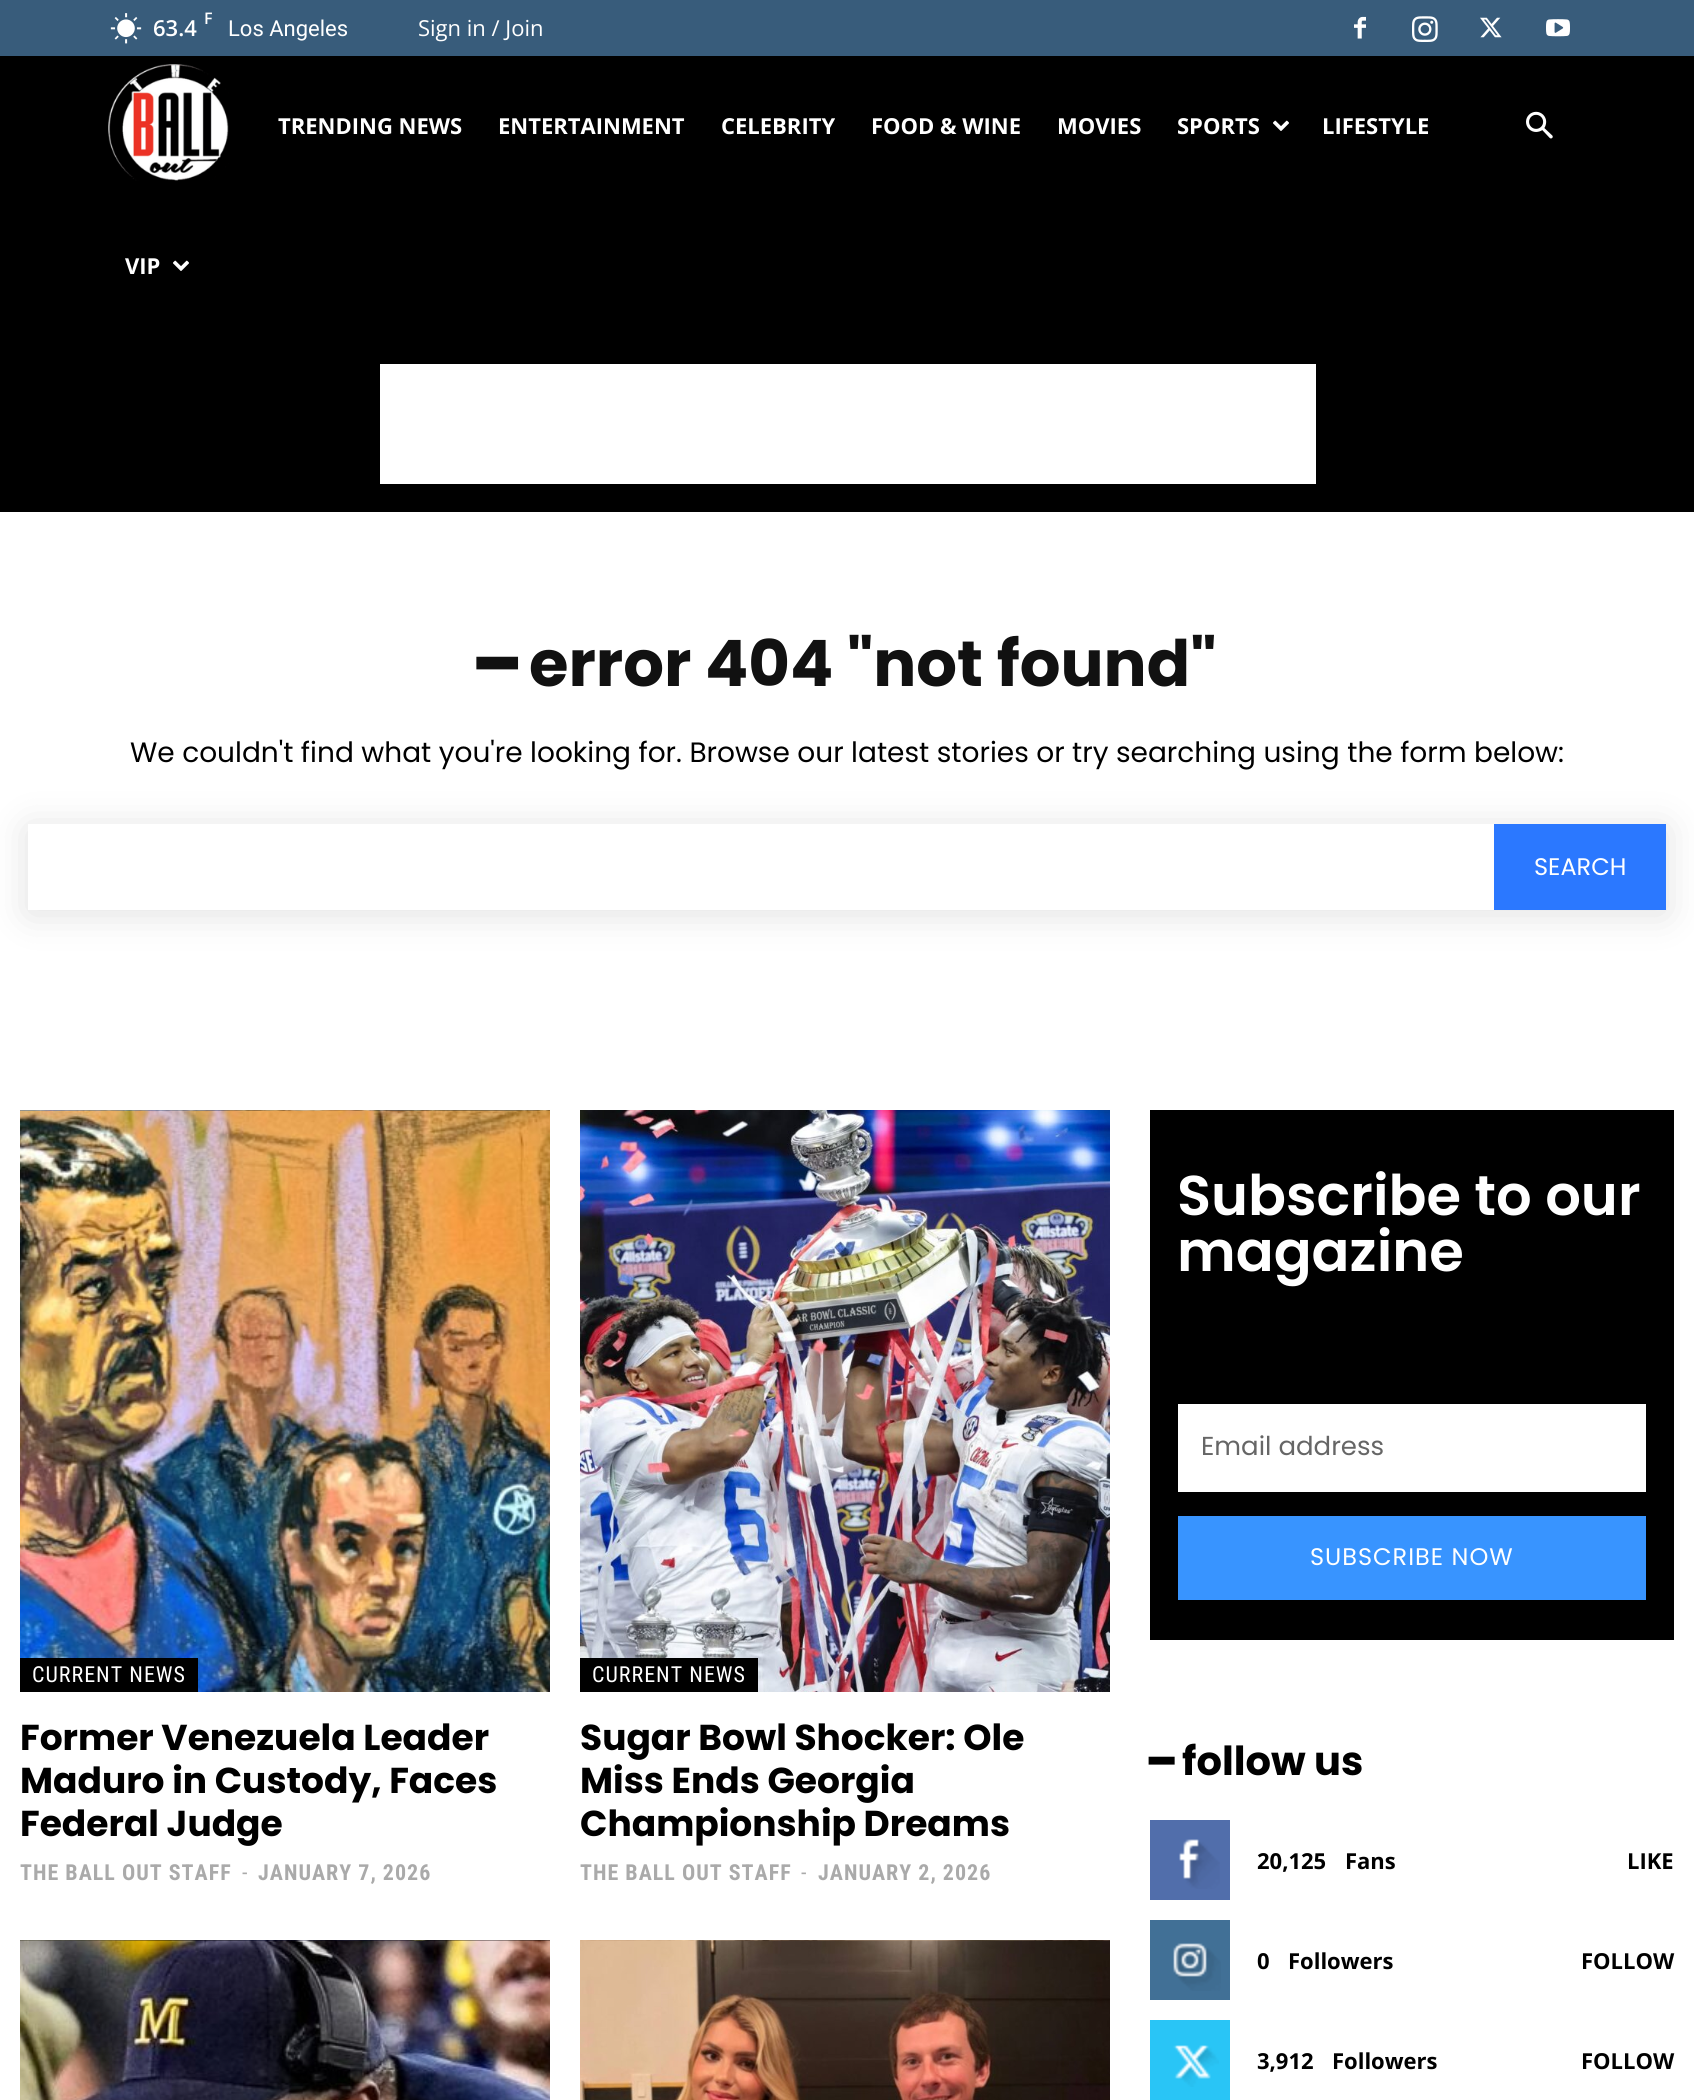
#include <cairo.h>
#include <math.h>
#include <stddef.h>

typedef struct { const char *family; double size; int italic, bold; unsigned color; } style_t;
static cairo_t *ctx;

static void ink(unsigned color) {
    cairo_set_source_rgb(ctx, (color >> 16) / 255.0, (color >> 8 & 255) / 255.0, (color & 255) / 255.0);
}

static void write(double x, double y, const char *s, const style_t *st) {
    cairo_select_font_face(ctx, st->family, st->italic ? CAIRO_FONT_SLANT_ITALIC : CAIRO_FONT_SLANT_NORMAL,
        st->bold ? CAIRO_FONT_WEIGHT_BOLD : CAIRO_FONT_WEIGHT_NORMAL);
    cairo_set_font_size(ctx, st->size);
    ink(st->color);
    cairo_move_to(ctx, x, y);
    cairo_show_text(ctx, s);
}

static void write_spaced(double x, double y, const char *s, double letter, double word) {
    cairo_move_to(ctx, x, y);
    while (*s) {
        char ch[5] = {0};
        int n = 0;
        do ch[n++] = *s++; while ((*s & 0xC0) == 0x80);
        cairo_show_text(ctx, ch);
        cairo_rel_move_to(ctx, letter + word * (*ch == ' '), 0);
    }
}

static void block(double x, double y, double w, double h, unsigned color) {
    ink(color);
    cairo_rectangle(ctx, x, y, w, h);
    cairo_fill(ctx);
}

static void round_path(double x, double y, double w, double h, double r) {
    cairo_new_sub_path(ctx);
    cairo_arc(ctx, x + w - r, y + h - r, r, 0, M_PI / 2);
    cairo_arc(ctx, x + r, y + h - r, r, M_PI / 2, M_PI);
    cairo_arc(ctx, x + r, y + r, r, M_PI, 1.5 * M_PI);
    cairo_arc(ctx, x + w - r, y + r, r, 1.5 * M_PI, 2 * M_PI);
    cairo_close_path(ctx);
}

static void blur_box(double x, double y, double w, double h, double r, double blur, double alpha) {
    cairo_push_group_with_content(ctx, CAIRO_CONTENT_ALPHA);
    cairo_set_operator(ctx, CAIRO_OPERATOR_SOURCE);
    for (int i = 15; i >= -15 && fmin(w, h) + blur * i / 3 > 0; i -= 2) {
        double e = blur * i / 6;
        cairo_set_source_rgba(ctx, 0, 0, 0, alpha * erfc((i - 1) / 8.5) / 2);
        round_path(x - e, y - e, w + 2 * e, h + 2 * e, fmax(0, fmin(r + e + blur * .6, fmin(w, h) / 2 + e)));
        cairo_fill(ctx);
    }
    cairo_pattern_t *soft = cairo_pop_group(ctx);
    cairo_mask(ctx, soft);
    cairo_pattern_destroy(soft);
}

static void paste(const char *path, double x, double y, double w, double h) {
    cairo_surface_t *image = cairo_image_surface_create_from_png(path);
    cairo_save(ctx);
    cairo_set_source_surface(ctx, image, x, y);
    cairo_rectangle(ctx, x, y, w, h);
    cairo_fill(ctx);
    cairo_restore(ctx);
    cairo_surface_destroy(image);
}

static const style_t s1 = {"Open Sans SemiBold", 16, 0, 0, 0xffffff};
static const style_t s2 = {"Open Sans SemiBold", 22, 0, 0, 0xffffff};
static const style_t s3 = {"Roboto", 22, 0, 0, 0xffffff};
static const style_t s4 = {"Open Sans", 22, 0, 0, 0xffffff};
static const style_t s5 = {"Open Sans", 22, 0, 1, 0xffffff};
static const style_t s6 = {"DejaVu Sans", 64, 0, 1, 0x111111};
static const style_t s7 = {"Poppins", 64, 0, 1, 0x111111};
static const style_t s8 = {"Poppins", 28, 0, 0, 0x000000};
static const style_t s9 = {"Poppins", 24, 0, 0, 0xffffff};
static const style_t s10 = {"Poppins", 36, 0, 1, 0x000000};
static const style_t s11 = {"Poppins SemiBold", 56, 0, 0, 0xffffff};
static const style_t s12 = {"Poppins", 26, 0, 0, 0x666666};
static const style_t s13 = {"DejaVu Sans", 40, 0, 1, 0x000000};
static const style_t s14 = {"Poppins", 40, 0, 1, 0x000000};
static const style_t s15 = {"Open Sans", 22, 0, 1, 0x000000};

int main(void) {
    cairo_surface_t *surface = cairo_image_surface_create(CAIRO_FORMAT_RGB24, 1694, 2100);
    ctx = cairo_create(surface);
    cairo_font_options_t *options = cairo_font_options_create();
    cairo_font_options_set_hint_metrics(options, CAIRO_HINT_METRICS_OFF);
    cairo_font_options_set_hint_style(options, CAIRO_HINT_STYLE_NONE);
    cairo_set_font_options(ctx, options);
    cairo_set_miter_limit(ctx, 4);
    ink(0xffffff);
    cairo_paint(ctx);
    block(0, 0, 1694, 56, 0x385c7b);
    paste("pic1.png", 110, 13, 32, 31);
    write(204, 24, "F", &s1);
    write(153, 36, "63.4", &s2);
    write(228, 36, "Los Angeles", &s3);
    write(418, 36, "Sign in / Join", &s4);
    paste("pic2.png", 1354, 16, 12, 23);
    paste("pic3.png", 1412, 16, 26, 26);
    paste("pic4.png", 1480, 17, 22, 21);
    paste("pic5.png", 1546, 19, 24, 18);
    block(0, 56, 1694, 456, 0x000000);
    block(380, 364, 936, 120, 0xffffff);
    paste("pic6.png", 108, 64, 121, 117);
    write(278, 134, "TRENDING NEWS", &s5);
    write(498, 134, "ENTERTAINMENT", &s5);
    write(721, 134, "CELEBRITY", &s5);
    write(871, 134, "FOOD & WINE", &s5);
    write(1057, 134, "MOVIES", &s5);
    write(1177, 134, "SPORTS", &s5);
    paste("pic7.png", 1273, 120, 16, 11);
    write(1322, 134, "LIFESTYLE", &s5);
    write(125, 274, "VIP", &s5);
    paste("pic7.png", 173, 260, 16, 11);
    paste("pic8.png", 1526, 111, 27, 28);
    write(477, 686, "━", &s6);
    write(529, 686, "error 404 \"not found\"", &s7);
    write(130, 762, "We couldn't find what you're looking for. Browse our latest stories or try searching using the form below:", &s8);
    cairo_save(ctx);
    cairo_set_fill_rule(ctx, CAIRO_FILL_RULE_EVEN_ODD);
    cairo_new_path(ctx);
    cairo_move_to(ctx, 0, 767);
    cairo_line_to(ctx, 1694, 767);
    cairo_line_to(ctx, 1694, 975);
    cairo_line_to(ctx, 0, 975);
    cairo_close_path(ctx);
    cairo_move_to(ctx, 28, 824);
    cairo_line_to(ctx, 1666, 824);
    cairo_line_to(ctx, 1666, 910);
    cairo_line_to(ctx, 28, 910);
    cairo_close_path(ctx);
    cairo_clip(ctx);
    ink(0x000000);
    blur_box(28, 828, 1638, 86, 0, 20, 0.12);
    cairo_restore(ctx);
    block(1494, 824, 172, 86, 0x2b78ff);
    write(1534, 875, "SEARCH", &s9);
    paste("pic9.png", 20, 1110, 530, 582);
    block(20, 1658, 178, 34, 0x000000);
    cairo_select_font_face(ctx, "Roboto Condensed", CAIRO_FONT_SLANT_NORMAL, CAIRO_FONT_WEIGHT_NORMAL);
    cairo_set_font_size(ctx, 22);
    ink(0xffffff);
    write_spaced(32, 1682, "CURRENT NEWS", 1, 0);
    write(20, 1750, "Former Venezuela Leader", &s10);
    write(20, 1793, "Maduro in Custody, Faces", &s10);
    write(20, 1836, "Federal Judge", &s10);
    cairo_select_font_face(ctx, "Roboto Condensed", CAIRO_FONT_SLANT_NORMAL, CAIRO_FONT_WEIGHT_BOLD);
    cairo_set_font_size(ctx, 22);
    ink(0xaaaaaa);
    write_spaced(20, 1880, "THE BALL OUT STAFF", 1, 0);
    cairo_select_font_face(ctx, "Roboto Condensed", CAIRO_FONT_SLANT_NORMAL, CAIRO_FONT_WEIGHT_NORMAL);
    write_spaced(242, 1880, "-", 1, 0);
    cairo_select_font_face(ctx, "Roboto Condensed", CAIRO_FONT_SLANT_NORMAL, CAIRO_FONT_WEIGHT_BOLD);
    write_spaced(258, 1880, "JANUARY 7, 2026", 1, 0);
    paste("pic10.png", 580, 1110, 530, 582);
    block(580, 1658, 178, 34, 0x000000);
    cairo_select_font_face(ctx, "Roboto Condensed", CAIRO_FONT_SLANT_NORMAL, CAIRO_FONT_WEIGHT_NORMAL);
    ink(0xffffff);
    write_spaced(592, 1682, "CURRENT NEWS", 1, 0);
    write(580, 1750, "Sugar Bowl Shocker: Ole", &s10);
    write(580, 1793, "Miss Ends Georgia", &s10);
    write(580, 1836, "Championship Dreams", &s10);
    cairo_select_font_face(ctx, "Roboto Condensed", CAIRO_FONT_SLANT_NORMAL, CAIRO_FONT_WEIGHT_BOLD);
    cairo_set_font_size(ctx, 22);
    ink(0xaaaaaa);
    write_spaced(580, 1880, "THE BALL OUT STAFF", 1, 0);
    cairo_select_font_face(ctx, "Roboto Condensed", CAIRO_FONT_SLANT_NORMAL, CAIRO_FONT_WEIGHT_NORMAL);
    write_spaced(801, 1880, "-", 1, 0);
    cairo_select_font_face(ctx, "Roboto Condensed", CAIRO_FONT_SLANT_NORMAL, CAIRO_FONT_WEIGHT_BOLD);
    write_spaced(818, 1880, "JANUARY 2, 2026", 1, 0);
    paste("pic11.png", 20, 1940, 530, 160);
    paste("pic12.png", 580, 1940, 530, 160);
    block(1150, 1110, 524, 530, 0x000000);
    write(1177, 1215, "Subscribe to our", &s11);
    write(1177, 1271, "magazine", &s11);
    block(1178, 1404, 468, 88, 0xffffff);
    write(1201, 1455, "Email address", &s12);
    block(1178, 1516, 468, 84, 0x3894ff);
    cairo_set_font_size(ctx, 24);
    ink(0xffffff);
    write_spaced(1310, 1565, "SUBSCRIBE NOW", 1, 0);
    write(1149, 1775, "━", &s13);
    write(1182, 1775, "follow us", &s14);
    block(1150, 1820, 80, 80, 0x516eab);
    paste("pic13.png", 1179, 1839, 41, 50);
    write(1257, 1869, "20,125", &s15);
    write(1345, 1869, "Fans", &s15);
    write(1627, 1869, "LIKE", &s15);
    block(1150, 1920, 80, 80, 0x417096);
    paste("pic14.png", 1173, 1943, 48, 48);
    write(1257, 1969, "0", &s15);
    write(1288, 1969, "Followers", &s15);
    write(1581, 1969, "FOLLOW", &s15);
    block(1150, 2020, 80, 80, 0x29c5f6);
    paste("pic15.png", 1173, 2045, 46, 42);
    write(1257, 2069, "3,912", &s15);
    write(1332, 2069, "Followers", &s15);
    write(1581, 2069, "FOLLOW", &s15);
    cairo_surface_write_to_png(surface, "screenshot.png");
    cairo_font_options_destroy(options);
    cairo_destroy(ctx);
    cairo_surface_destroy(surface);
    return 0;
}
